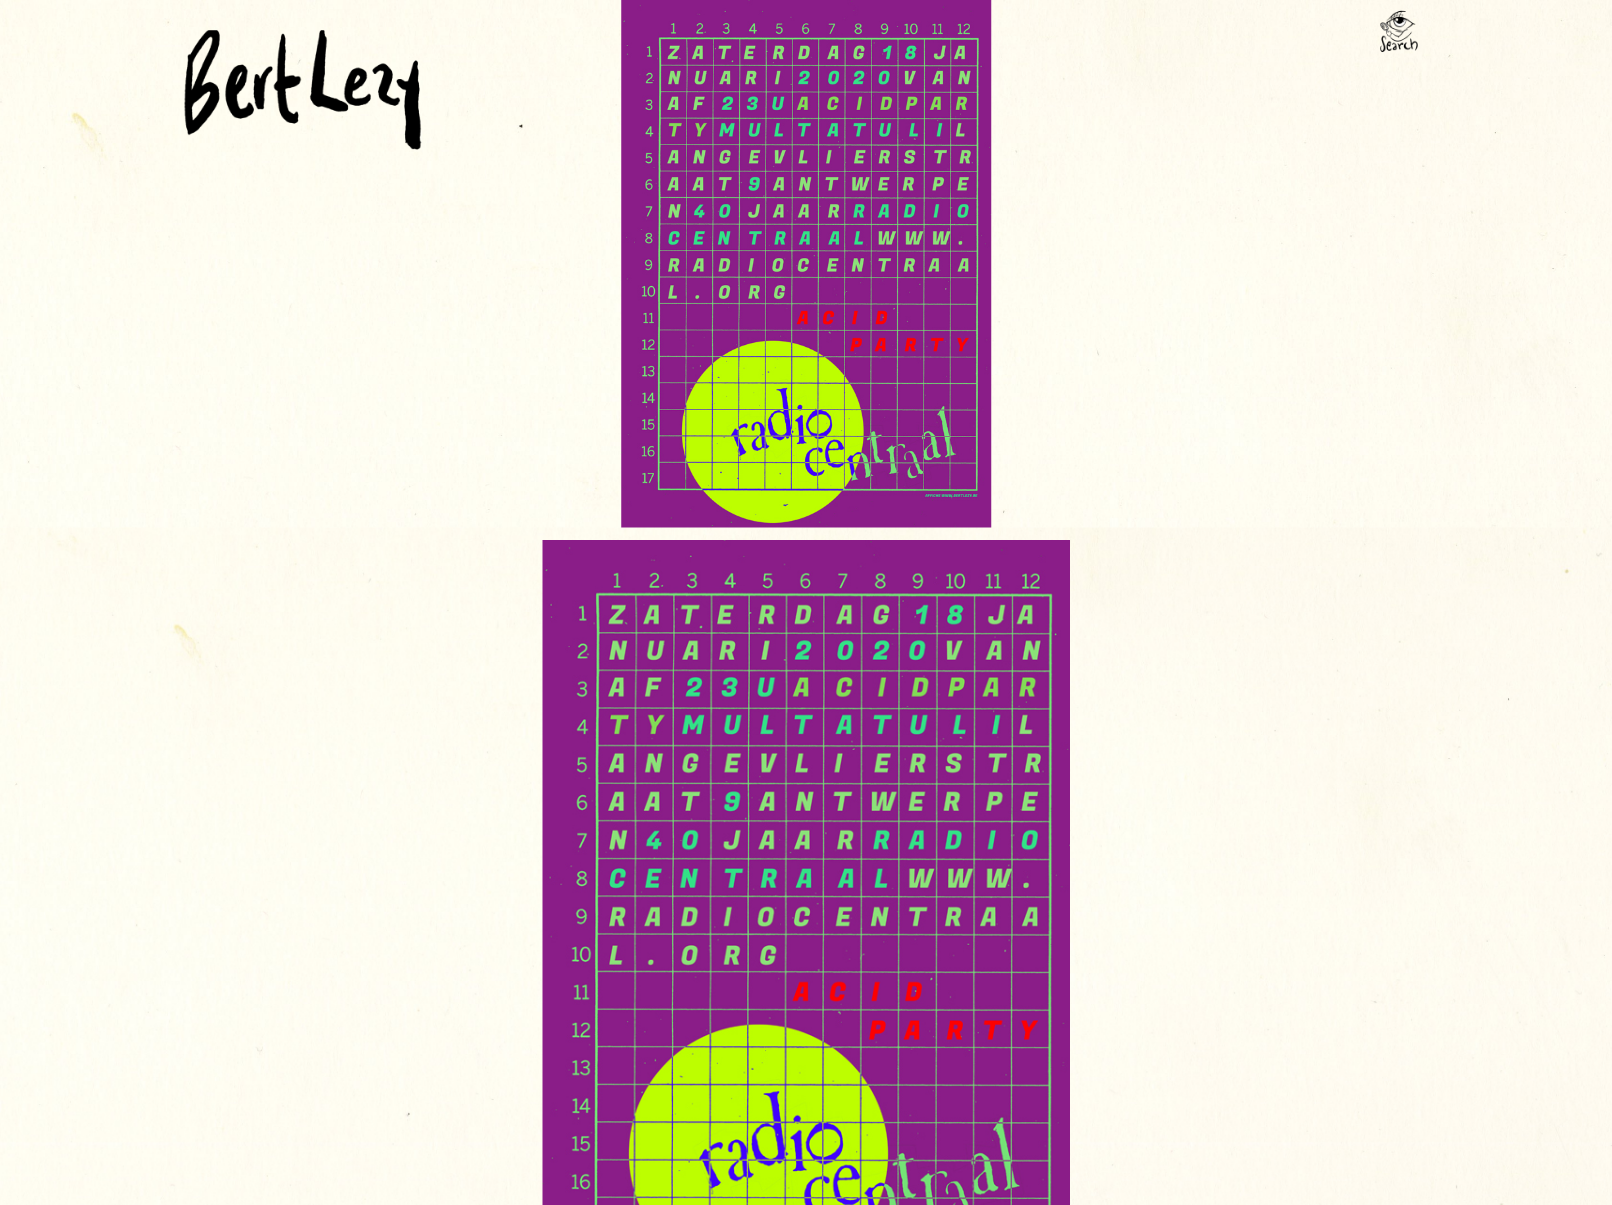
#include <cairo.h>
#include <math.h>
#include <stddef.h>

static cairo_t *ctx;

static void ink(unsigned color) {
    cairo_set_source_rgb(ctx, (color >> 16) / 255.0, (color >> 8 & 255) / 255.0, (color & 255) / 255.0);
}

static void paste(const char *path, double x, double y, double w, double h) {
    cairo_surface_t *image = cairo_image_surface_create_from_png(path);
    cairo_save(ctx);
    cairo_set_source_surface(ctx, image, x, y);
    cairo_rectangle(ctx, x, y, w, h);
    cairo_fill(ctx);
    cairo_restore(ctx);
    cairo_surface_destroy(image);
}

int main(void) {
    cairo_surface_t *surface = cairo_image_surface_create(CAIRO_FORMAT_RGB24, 1612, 1205);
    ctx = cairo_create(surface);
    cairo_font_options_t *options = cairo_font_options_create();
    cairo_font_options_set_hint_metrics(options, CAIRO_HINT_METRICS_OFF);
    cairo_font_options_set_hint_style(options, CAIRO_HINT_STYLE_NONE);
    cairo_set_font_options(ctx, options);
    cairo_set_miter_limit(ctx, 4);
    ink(0xffffff);
    cairo_paint(ctx);
    paste("pic1.png", 0, 0, 1612, 528);
    paste("pic2.png", 184, 30, 238, 120);
    paste("pic5.png", 0, 527, 1612, 678);
    paste("pic3.png", 621, 0, 371, 528);
    paste("pic4.png", 1380, 10, 38, 43);
    paste("pic6.png", 542, 540, 528, 665);
    cairo_surface_write_to_png(surface, "screenshot.png");
    cairo_font_options_destroy(options);
    cairo_destroy(ctx);
    cairo_surface_destroy(surface);
    return 0;
}
